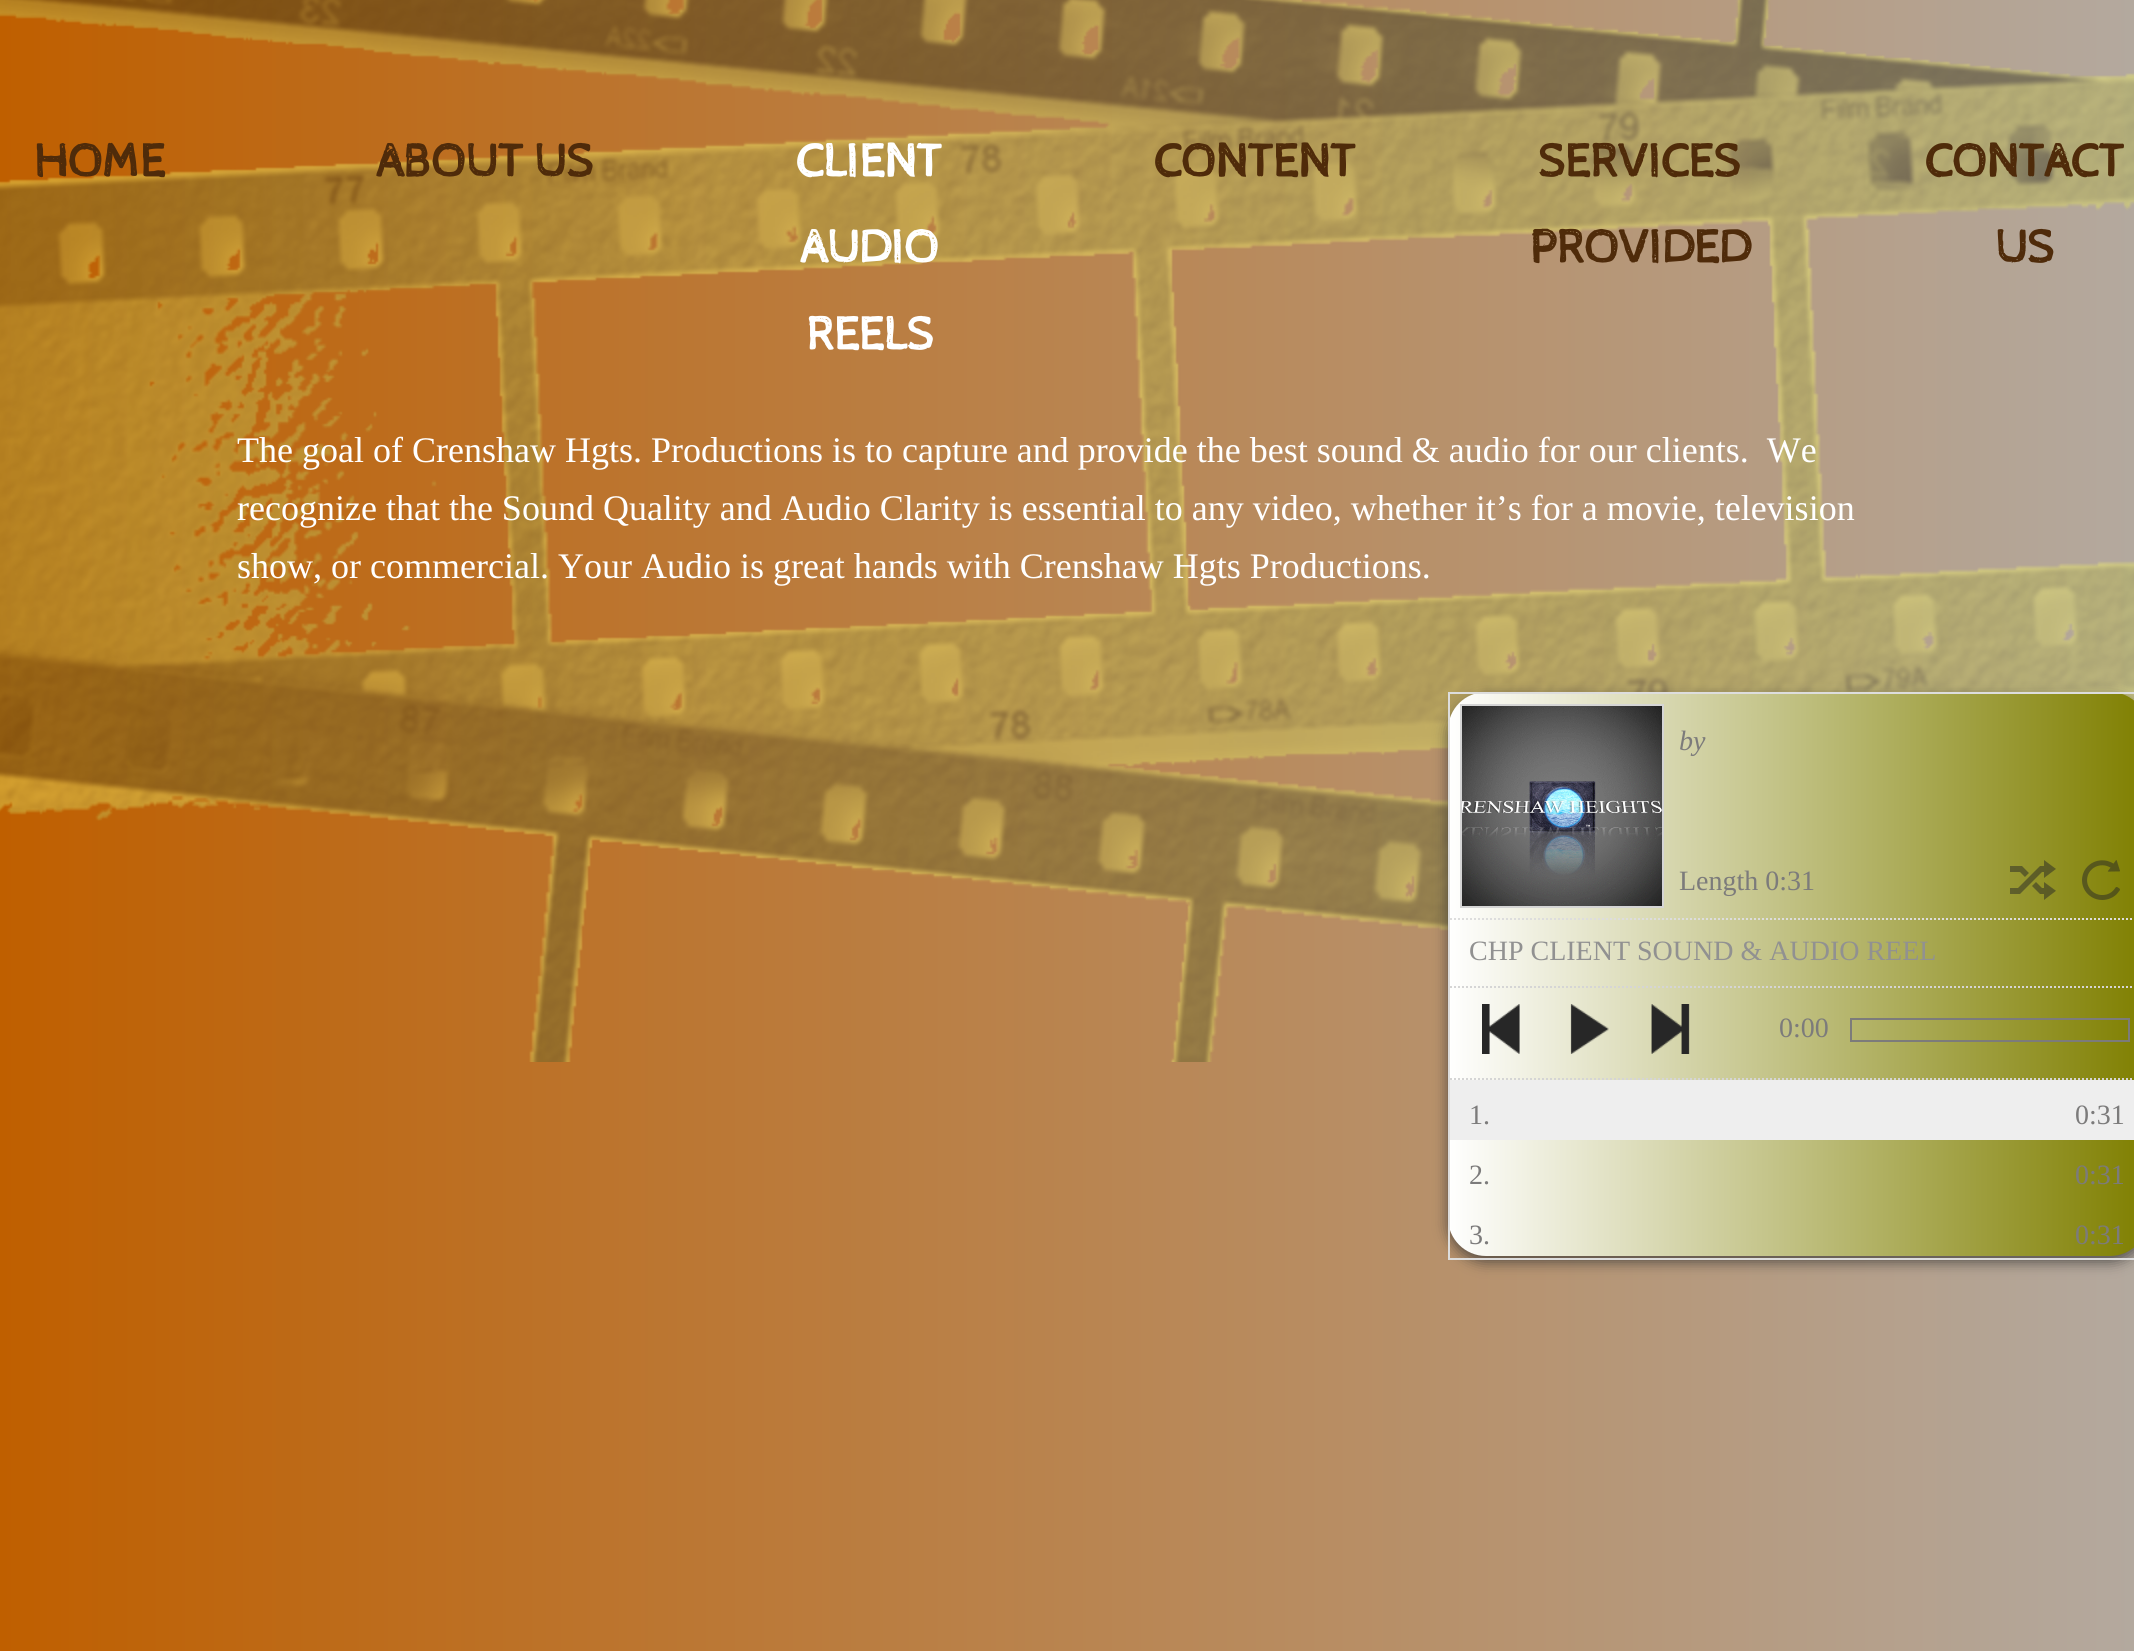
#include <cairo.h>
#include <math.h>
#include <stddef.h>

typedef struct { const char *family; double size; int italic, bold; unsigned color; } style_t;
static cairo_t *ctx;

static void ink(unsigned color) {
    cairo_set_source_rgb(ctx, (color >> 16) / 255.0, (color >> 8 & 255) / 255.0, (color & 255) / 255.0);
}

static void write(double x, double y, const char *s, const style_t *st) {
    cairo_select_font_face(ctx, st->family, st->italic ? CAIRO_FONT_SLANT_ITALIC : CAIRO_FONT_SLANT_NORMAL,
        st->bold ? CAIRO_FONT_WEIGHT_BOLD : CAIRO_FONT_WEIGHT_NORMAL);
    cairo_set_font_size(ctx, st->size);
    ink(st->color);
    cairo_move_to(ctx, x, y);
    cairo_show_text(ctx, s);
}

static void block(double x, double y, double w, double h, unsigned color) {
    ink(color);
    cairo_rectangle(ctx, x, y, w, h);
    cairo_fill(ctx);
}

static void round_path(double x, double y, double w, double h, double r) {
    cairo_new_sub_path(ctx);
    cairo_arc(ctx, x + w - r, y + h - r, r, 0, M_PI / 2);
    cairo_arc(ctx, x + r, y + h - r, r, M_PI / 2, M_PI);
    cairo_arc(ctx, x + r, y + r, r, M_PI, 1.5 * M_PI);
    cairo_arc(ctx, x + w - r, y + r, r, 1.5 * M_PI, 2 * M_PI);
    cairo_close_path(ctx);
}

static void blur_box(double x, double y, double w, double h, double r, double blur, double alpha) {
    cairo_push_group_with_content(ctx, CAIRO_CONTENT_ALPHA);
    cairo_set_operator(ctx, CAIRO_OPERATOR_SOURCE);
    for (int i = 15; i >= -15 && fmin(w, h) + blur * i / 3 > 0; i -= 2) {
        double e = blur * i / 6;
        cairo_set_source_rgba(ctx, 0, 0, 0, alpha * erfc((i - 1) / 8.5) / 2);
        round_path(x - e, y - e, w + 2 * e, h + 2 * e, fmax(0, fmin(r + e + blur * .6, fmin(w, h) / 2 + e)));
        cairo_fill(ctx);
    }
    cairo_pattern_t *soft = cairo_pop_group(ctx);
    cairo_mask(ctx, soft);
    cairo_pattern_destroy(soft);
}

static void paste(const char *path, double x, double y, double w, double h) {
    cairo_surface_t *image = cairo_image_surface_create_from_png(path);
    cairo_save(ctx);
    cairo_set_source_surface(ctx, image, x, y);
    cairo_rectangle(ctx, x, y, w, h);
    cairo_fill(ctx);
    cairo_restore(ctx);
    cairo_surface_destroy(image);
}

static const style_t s1 = {"Cabin Sketch", 48, 0, 1, 0x4f2b0a};
static const style_t s2 = {"Cabin Sketch", 48, 0, 1, 0xffffff};
static const style_t s3 = {"Liberation Serif", 36, 0, 0, 0xffffff};
static const style_t s4 = {"Liberation Serif", 28, 1, 0, 0x7c7b7b};
static const style_t s5 = {"Liberation Serif", 28, 0, 0, 0x7c7b7b};
static const style_t s6 = {"Liberation Serif", 28, 0, 0, 0x919191};

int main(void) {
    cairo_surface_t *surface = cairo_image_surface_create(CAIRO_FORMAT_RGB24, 2134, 1651);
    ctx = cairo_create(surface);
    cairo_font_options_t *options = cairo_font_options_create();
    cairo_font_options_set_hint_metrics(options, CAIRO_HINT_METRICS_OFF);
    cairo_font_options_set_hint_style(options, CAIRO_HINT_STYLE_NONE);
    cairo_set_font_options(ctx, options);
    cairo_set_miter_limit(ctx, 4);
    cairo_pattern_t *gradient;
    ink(0xffffff);
    cairo_paint(ctx);
    gradient = cairo_pattern_create_linear(0, 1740, 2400, 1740);
    cairo_pattern_add_color_stop_rgba(gradient, 0, 0.749, 0.373, 0, 1);
    cairo_pattern_add_color_stop_rgba(gradient, 1, 0.698, 0.698, 0.698, 1);
    cairo_set_source(ctx, gradient);
    cairo_pattern_destroy(gradient);
    cairo_rectangle(ctx, 0, 0, 2134, 1651);
    cairo_fill(ctx);
    paste("pic1.png", 0, 0, 2134, 1062);
    write(34, 176, "HOME", &s1);
    write(376, 176, "ABOUT US", &s1);
    write(796, 176, "CLIENT", &s2);
    write(800, 262, "AUDIO", &s2);
    write(806, 349, "REELS", &s2);
    write(1154, 176, "CONTENT", &s1);
    write(1538, 176, "SERVICES", &s1);
    write(1529, 262, "PROVIDED", &s1);
    write(1925, 176, "CONTACT", &s1);
    write(1995, 262, "US", &s1);
    write(237, 462, "The goal of Crenshaw Hgts. Productions is to capture and provide the best sound & audio for our clients.  We", &s3);
    write(237, 520, "recognize that the Sound Quality and Audio Clarity is essential to any video, whether it’s for a movie, television", &s3);
    write(237, 578, "show, or commercial. Your Audio is great hands with Crenshaw Hgts Productions.", &s3);
    ink(0x323232);
    blur_box(1448, 698, 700, 564, 38, 7, 0.75);
    gradient = cairo_pattern_create_linear(1448, 974, 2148, 974);
    cairo_pattern_add_color_stop_rgba(gradient, 0, 1, 1, 1, 1);
    cairo_pattern_add_color_stop_rgba(gradient, 1, 0.498, 0.498, 0, 1);
    cairo_set_source(ctx, gradient);
    cairo_pattern_destroy(gradient);
    round_path(1448, 692, 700, 564, 38);
    cairo_fill(ctx);
    cairo_rectangle(ctx, 1449, 693, 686, 566);
    ink(0xdddddd);
    cairo_stroke(ctx);
    cairo_rectangle(ctx, 1461, 705, 202, 202);
    ink(0xd5d5d5);
    cairo_stroke(ctx);
    paste("pic2.png", 1462, 706, 200, 200);
    write(1679, 750, "by", &s4);
    write(1679, 890, "Length 0:31", &s5);
    paste("pic3.png", 2010, 860, 46, 40);
    paste("pic4.png", 2082, 860, 38, 40);
    cairo_new_path(ctx);
    cairo_move_to(ctx, 1450, 919);
    cairo_line_to(ctx, 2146, 919);
    ink(0xdddddd);
    cairo_set_dash(ctx, (double[]){2, 2}, 2, 0);
    cairo_stroke(ctx);
    write(1469, 960, "CHP CLIENT SOUND & AUDIO REEL", &s6);
    cairo_new_path(ctx);
    cairo_move_to(ctx, 1450, 987);
    cairo_line_to(ctx, 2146, 987);
    ink(0xd5d5d5);
    cairo_stroke(ctx);
    paste("pic5.png", 1482, 1004, 38, 50);
    paste("pic6.png", 1570, 1004, 39, 50);
    paste("pic7.png", 1651, 1004, 39, 50);
    write(1779, 1037, "0:00", &s5);
    cairo_rectangle(ctx, 1851, 1019, 278, 22);
    cairo_set_dash(ctx, NULL, 0, 0);
    cairo_stroke(ctx);
    cairo_new_path(ctx);
    cairo_move_to(ctx, 1450, 1079);
    cairo_line_to(ctx, 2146, 1079);
    ink(0xd5d5d5);
    cairo_set_dash(ctx, (double[]){2, 2}, 2, 0);
    cairo_stroke(ctx);
    block(1450, 1080, 684, 60, 0xeeeeee);
    write(1469, 1124, "1.", &s5);
    write(2075, 1124, "0:31", &s5);
    write(1469, 1184, "2.", &s5);
    write(2075, 1184, "0:31", &s5);
    write(1469, 1244, "3.", &s5);
    write(2075, 1244, "0:31", &s5);
    cairo_surface_write_to_png(surface, "screenshot.png");
    cairo_font_options_destroy(options);
    cairo_destroy(ctx);
    cairo_surface_destroy(surface);
    return 0;
}
